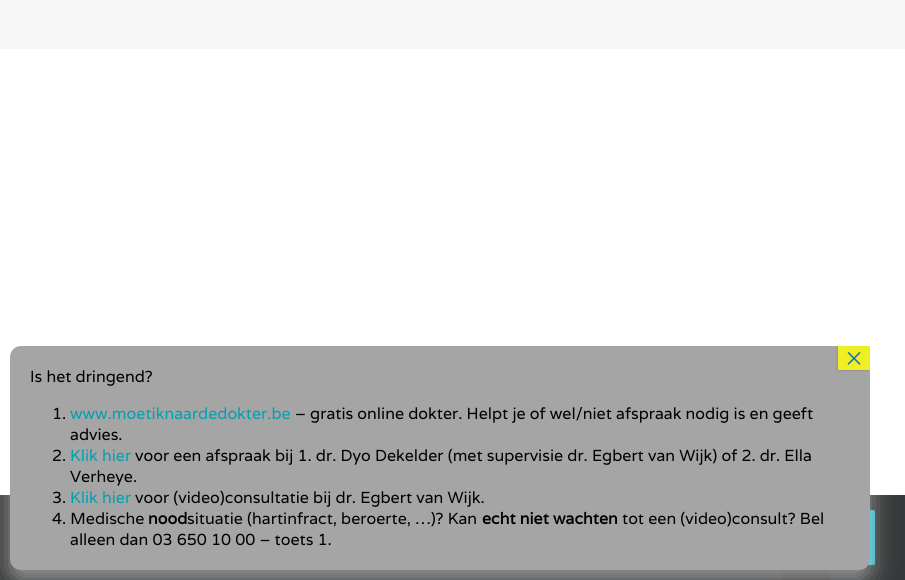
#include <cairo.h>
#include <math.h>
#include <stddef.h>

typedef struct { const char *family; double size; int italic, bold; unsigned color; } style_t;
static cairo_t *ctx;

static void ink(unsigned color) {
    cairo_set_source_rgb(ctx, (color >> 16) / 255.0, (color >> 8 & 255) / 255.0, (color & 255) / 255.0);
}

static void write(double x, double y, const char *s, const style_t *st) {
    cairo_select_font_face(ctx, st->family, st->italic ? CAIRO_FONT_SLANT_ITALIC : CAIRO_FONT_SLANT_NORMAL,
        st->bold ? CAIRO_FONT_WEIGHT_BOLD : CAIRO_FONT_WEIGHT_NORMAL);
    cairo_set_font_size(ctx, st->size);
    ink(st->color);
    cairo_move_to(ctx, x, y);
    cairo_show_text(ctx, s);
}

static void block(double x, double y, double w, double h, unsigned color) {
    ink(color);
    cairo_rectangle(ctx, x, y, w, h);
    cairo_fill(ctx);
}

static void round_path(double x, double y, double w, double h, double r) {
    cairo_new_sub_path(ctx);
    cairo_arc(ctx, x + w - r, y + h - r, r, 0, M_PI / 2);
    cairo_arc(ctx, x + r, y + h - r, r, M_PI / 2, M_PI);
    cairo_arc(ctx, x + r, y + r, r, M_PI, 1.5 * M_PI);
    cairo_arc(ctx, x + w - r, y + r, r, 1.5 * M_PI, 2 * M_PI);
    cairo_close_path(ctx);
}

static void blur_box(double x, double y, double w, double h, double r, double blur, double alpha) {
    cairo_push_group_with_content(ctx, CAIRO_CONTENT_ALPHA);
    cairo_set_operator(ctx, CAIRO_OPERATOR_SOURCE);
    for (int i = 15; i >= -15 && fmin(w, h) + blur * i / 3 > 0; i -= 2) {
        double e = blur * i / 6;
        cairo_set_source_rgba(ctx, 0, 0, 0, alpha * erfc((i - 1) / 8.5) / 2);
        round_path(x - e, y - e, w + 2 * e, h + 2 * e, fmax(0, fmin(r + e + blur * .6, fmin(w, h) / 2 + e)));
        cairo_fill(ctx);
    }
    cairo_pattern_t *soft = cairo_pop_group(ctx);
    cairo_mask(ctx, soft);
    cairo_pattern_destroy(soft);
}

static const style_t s1 = {"Liberation Serif", 32, 0, 0, 0x1e73be};
static const style_t s2 = {"Varela", 16, 0, 0, 0x000000};
static const style_t s3 = {"Varela", 16, 0, 0, 0x00a0b2};
static const style_t s4 = {"Varela", 16, 0, 1, 0x000000};

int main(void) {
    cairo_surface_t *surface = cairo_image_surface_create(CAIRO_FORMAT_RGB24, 905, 580);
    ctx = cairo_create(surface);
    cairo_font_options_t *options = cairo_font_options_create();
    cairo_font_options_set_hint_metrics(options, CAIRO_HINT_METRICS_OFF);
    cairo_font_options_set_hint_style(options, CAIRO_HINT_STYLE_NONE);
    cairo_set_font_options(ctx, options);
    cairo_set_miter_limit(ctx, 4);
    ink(0xf6f6f6);
    cairo_paint(ctx);
    block(0, 49, 905, 446, 0xffffff);
    block(0, 495, 905, 85, 0x363839);
    ink(0x3bafbf);
    round_path(773, 510, 102, 55, 2);
    cairo_fill(ctx);
    cairo_set_source_rgba(ctx, 0.2, 0.2, 0.2, 0.9);
    cairo_rectangle(ctx, 782, 570, 48, 10);
    cairo_fill(ctx);
    ink(0xffffff);
    blur_box(10, 356, 860, 224, 11, 12.5, 0.5);
    ink(0xa5a5a5);
    round_path(10, 346, 860, 224, 11);
    cairo_fill(ctx);
    ink(0x020202);
    blur_box(837, 347, 32, 24, 0, 0.5, 0.1);
    block(838, 346, 32, 24, 0xeeee22);
    write(845, 369, "×", &s1);
    write(30, 382, "Is het dringend?", &s2);
    write(52, 419, "1.", &s2);
    write(70, 419, "www.moetiknaardedokter.be", &s3);
    write(295, 419, "– gratis online dokter. Helpt je of wel/niet afspraak nodig is en geeft", &s2);
    write(70, 440, "advies.", &s2);
    write(52, 461, "2.", &s2);
    write(70, 461, "Klik hier", &s3);
    write(135, 461, "voor een afspraak bij 1. dr. Dyo Dekelder (met supervisie dr. Egbert van Wijk) of 2. dr. Ella", &s2);
    write(70, 482, "Verheye.", &s2);
    write(52, 503, "3.", &s2);
    write(70, 503, "Klik hier", &s3);
    write(135, 503, "voor (video)consultatie bij dr. Egbert van Wijk.", &s2);
    write(52, 524, "4. Medische", &s2);
    write(148, 524, "nood", &s4);
    write(187, 524, "situatie (hartinfract, beroerte, …)? Kan", &s2);
    write(482, 524, "echt niet wachten", &s4);
    write(622, 524, "tot een (video)consult? Bel", &s2);
    write(70, 545, "alleen dan 03 650 10 00 – toets 1.", &s2);
    cairo_surface_write_to_png(surface, "screenshot.png");
    cairo_font_options_destroy(options);
    cairo_destroy(ctx);
    cairo_surface_destroy(surface);
    return 0;
}
